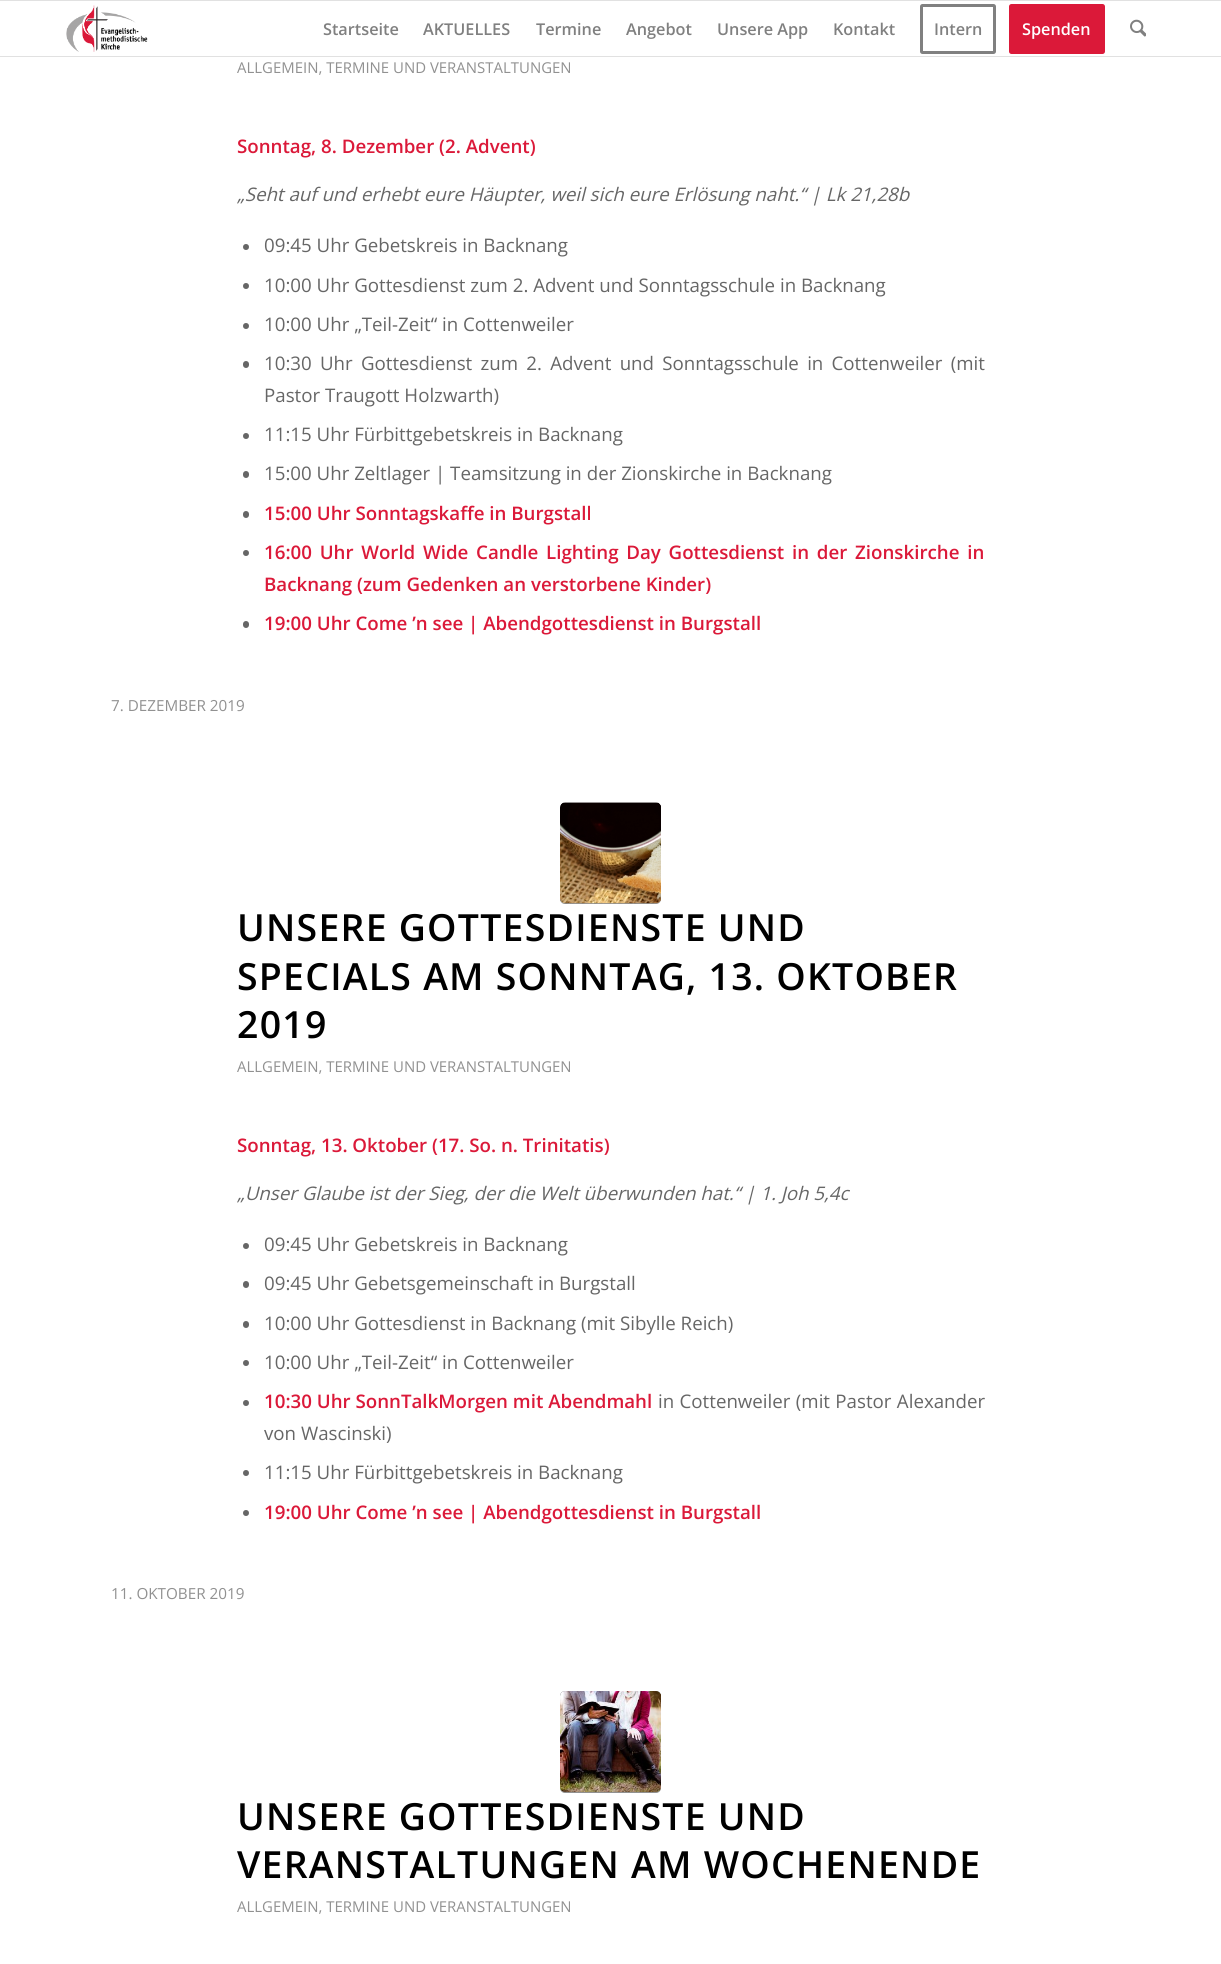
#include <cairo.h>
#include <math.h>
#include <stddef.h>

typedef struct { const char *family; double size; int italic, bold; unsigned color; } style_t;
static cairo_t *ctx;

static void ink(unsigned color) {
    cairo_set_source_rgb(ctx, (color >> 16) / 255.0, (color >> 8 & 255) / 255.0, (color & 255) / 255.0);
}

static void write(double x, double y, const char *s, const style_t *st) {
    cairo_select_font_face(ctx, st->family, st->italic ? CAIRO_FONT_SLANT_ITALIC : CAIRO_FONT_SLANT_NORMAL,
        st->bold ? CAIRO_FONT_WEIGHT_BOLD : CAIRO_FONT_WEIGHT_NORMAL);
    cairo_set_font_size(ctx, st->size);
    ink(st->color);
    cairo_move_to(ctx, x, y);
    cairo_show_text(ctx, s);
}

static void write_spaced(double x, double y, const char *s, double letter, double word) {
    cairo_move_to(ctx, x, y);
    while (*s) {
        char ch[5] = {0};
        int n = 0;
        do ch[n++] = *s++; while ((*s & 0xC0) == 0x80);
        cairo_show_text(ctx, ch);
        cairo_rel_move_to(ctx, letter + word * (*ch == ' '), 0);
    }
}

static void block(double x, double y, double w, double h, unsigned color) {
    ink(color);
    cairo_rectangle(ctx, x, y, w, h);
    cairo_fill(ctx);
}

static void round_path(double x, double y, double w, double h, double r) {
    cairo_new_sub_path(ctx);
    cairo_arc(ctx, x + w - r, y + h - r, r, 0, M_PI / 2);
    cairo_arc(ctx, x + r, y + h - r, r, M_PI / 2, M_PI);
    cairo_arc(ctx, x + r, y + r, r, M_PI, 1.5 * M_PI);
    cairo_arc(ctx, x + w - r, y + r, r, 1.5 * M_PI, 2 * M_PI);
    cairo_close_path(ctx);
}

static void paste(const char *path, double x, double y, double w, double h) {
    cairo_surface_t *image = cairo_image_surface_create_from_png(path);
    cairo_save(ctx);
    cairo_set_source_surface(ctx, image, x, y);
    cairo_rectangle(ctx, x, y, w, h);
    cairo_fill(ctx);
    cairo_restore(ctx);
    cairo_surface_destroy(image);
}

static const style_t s1 = {"Open Sans SemiBold", 16.25, 0, 0, 0x808080};
static const style_t s2 = {"Open Sans SemiBold", 16.25, 0, 0, 0xffffff};
static const style_t s3 = {"Open Sans", 14.95, 0, 0, 0x919191};
static const style_t s4 = {"Open Sans SemiBold", 18.7, 0, 0, 0xdb1939};
static const style_t s5 = {"Open Sans", 18.7, 1, 0, 0x666666};
static const style_t s6 = {"Open Sans", 18.7, 0, 0, 0x666666};
static const style_t s7 = {"Open Sans", 15.25, 0, 0, 0x919191};

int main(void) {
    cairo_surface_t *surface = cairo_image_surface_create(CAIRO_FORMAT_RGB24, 1221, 1964);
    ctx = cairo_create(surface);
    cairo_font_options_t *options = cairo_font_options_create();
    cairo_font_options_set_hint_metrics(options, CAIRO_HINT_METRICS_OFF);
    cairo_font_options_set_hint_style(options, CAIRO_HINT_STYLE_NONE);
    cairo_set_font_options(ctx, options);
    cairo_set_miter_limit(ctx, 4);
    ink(0xffffff);
    cairo_paint(ctx);
    block(0, 0, 1221, 1, 0xe1e1e1);
    block(0, 56, 1221, 1, 0xe1e1e1);
    paste("pic1.png", 66, 5, 82, 47);
    write(323, 35, "Startseite", &s1);
    write(423, 35, "AKTUELLES", &s1);
    write(536, 35, "Termine", &s1);
    write(626, 35, "Angebot", &s1);
    write(717, 35, "Unsere App", &s1);
    write(833, 35, "Kontakt", &s1);
    round_path(921.5, 5.5, 73, 47, 1);
    cairo_set_line_width(ctx, 3);
    cairo_stroke(ctx);
    write(934, 35, "Intern", &s1);
    ink(0xdb1939);
    round_path(1010.5, 5.5, 93, 47, 1);
    cairo_fill_preserve(ctx);
    cairo_stroke(ctx);
    write(1022, 35, "Spenden", &s2);
    paste("pic2.png", 1130, 19, 16, 18);
    write(237, 73, "ALLGEMEIN, TERMINE UND VERANSTALTUNGEN", &s3);
    write(237, 153, "Sonntag, 8. Dezember (2. Advent)", &s4);
    write(237, 201, "„Seht auf und erhebt eure Häupter, weil sich eure Erlösung naht.“ | Lk 21,28b", &s5);
    cairo_new_path(ctx);
    cairo_arc(ctx, 246, 247, 3, 0, 2 * M_PI);
    cairo_fill(ctx);
    write(264, 252, "09:45 Uhr Gebetskreis in Backnang", &s6);
    cairo_new_path(ctx);
    cairo_arc(ctx, 246, 286, 3, 0, 2 * M_PI);
    cairo_fill(ctx);
    write(264, 292, "10:00 Uhr Gottesdienst zum 2. Advent und Sonntagsschule in Backnang", &s6);
    cairo_new_path(ctx);
    cairo_arc(ctx, 246, 326, 3, 0, 2 * M_PI);
    cairo_fill(ctx);
    write(264, 331, "10:00 Uhr „Teil-Zeit“ in Cottenweiler", &s6);
    round_path(243, 361, 6, 7, 3);
    cairo_fill(ctx);
    write_spaced(264, 370, "10:30 Uhr Gottesdienst zum 2. Advent und Sonntagsschule in Cottenweiler (mit", 0, 3.4);
    write(264, 402, "Pastor Traugott Holzwarth)", &s6);
    cairo_new_path(ctx);
    cairo_arc(ctx, 246, 436, 3, 0, 2 * M_PI);
    cairo_fill(ctx);
    write(264, 441, "11:15 Uhr Fürbittgebetskreis in Backnang", &s6);
    round_path(243, 471, 6, 7, 3);
    cairo_fill(ctx);
    write(264, 480, "15:00 Uhr Zeltlager | Teamsitzung in der Zionskirche in Backnang", &s6);
    round_path(243, 511, 6, 7, 3);
    cairo_fill(ctx);
    write(264, 520, "15:00 Uhr Sonntagskaffe in Burgstall", &s4);
    ink(0x666666);
    cairo_new_path(ctx);
    cairo_arc(ctx, 246, 553, 3, 0, 2 * M_PI);
    cairo_fill(ctx);
    ink(0xdb1939);
    write_spaced(264, 559, "16:00 Uhr World Wide Candle Lighting Day Gottesdienst in der Zionskirche in", 0, 2.9);
    write(264, 591, "Backnang (zum Gedenken an verstorbene Kinder)", &s4);
    ink(0x666666);
    round_path(243, 621, 6, 7, 3);
    cairo_fill(ctx);
    write(264, 630, "19:00 Uhr Come ’n see | Abendgottesdienst in Burgstall", &s4);
    write(111, 711, "7. DEZEMBER 2019", &s7);
    round_path(560, 803, 101, 101, 5);
    cairo_fill(ctx);
    paste("pic3.png", 560, 802, 101, 102);
    cairo_select_font_face(ctx, "Open Sans SemiBold", CAIRO_FONT_SLANT_NORMAL, CAIRO_FONT_WEIGHT_NORMAL);
    cairo_set_font_size(ctx, 37.4);
    ink(0x000000);
    write_spaced(237, 941, "UNSERE GOTTESDIENSTE UND", 1.25, 0);
    write_spaced(237, 990, "SPECIALS AM SONNTAG, 13. OKTOBER", 1.25, 0);
    write_spaced(237, 1038, "2019", 1.25, 0);
    write(237, 1072, "ALLGEMEIN, TERMINE UND VERANSTALTUNGEN", &s3);
    write(237, 1152, "Sonntag, 13. Oktober (17. So. n. Trinitatis)", &s4);
    write(237, 1200, "„Unser Glaube ist der Sieg, der die Welt überwunden hat.“ | 1. Joh 5,4c", &s5);
    cairo_new_path(ctx);
    cairo_arc(ctx, 246, 1246, 3, 0, 2 * M_PI);
    cairo_fill(ctx);
    write(264, 1251, "09:45 Uhr Gebetskreis in Backnang", &s6);
    round_path(243, 1281, 6, 7, 3);
    cairo_fill(ctx);
    write(264, 1290, "09:45 Uhr Gebetsgemeinschaft in Burgstall", &s6);
    round_path(243, 1321, 6, 7, 3);
    cairo_fill(ctx);
    write(264, 1330, "10:00 Uhr Gottesdienst in Backnang (mit Sibylle Reich)", &s6);
    cairo_new_path(ctx);
    cairo_arc(ctx, 246, 1363, 3, 0, 2 * M_PI);
    cairo_fill(ctx);
    write(264, 1369, "10:00 Uhr „Teil-Zeit“ in Cottenweiler", &s6);
    cairo_new_path(ctx);
    cairo_arc(ctx, 246, 1403, 3, 0, 2 * M_PI);
    cairo_fill(ctx);
    write(264, 1408, "10:30 Uhr SonnTalkMorgen mit Abendmahl", &s4);
    cairo_select_font_face(ctx, "Open Sans", CAIRO_FONT_SLANT_NORMAL, CAIRO_FONT_WEIGHT_NORMAL);
    ink(0x666666);
    write_spaced(658, 1408, "in Cottenweiler (mit Pastor Alexander", 0, 0.5);
    write(264, 1440, "von Wascinski)", &s6);
    cairo_new_path(ctx);
    cairo_arc(ctx, 246, 1473, 3, 0, 2 * M_PI);
    cairo_fill(ctx);
    write(264, 1479, "11:15 Uhr Fürbittgebetskreis in Backnang", &s6);
    cairo_new_path(ctx);
    cairo_arc(ctx, 246, 1513, 3, 0, 2 * M_PI);
    cairo_fill(ctx);
    write(264, 1519, "19:00 Uhr Come ’n see | Abendgottesdienst in Burgstall", &s4);
    write(111, 1599, "11. OKTOBER 2019", &s7);
    round_path(560, 1691, 101, 102, 5);
    cairo_fill(ctx);
    paste("pic4.png", 560, 1691, 101, 101);
    cairo_select_font_face(ctx, "Open Sans SemiBold", CAIRO_FONT_SLANT_NORMAL, CAIRO_FONT_WEIGHT_NORMAL);
    cairo_set_font_size(ctx, 37.4);
    ink(0x000000);
    write_spaced(237, 1830, "UNSERE GOTTESDIENSTE UND", 1.25, 0);
    write_spaced(237, 1878, "VERANSTALTUNGEN AM WOCHENENDE", 1.25, 0);
    write(237, 1912, "ALLGEMEIN, TERMINE UND VERANSTALTUNGEN", &s3);
    cairo_surface_write_to_png(surface, "screenshot.png");
    cairo_font_options_destroy(options);
    cairo_destroy(ctx);
    cairo_surface_destroy(surface);
    return 0;
}
